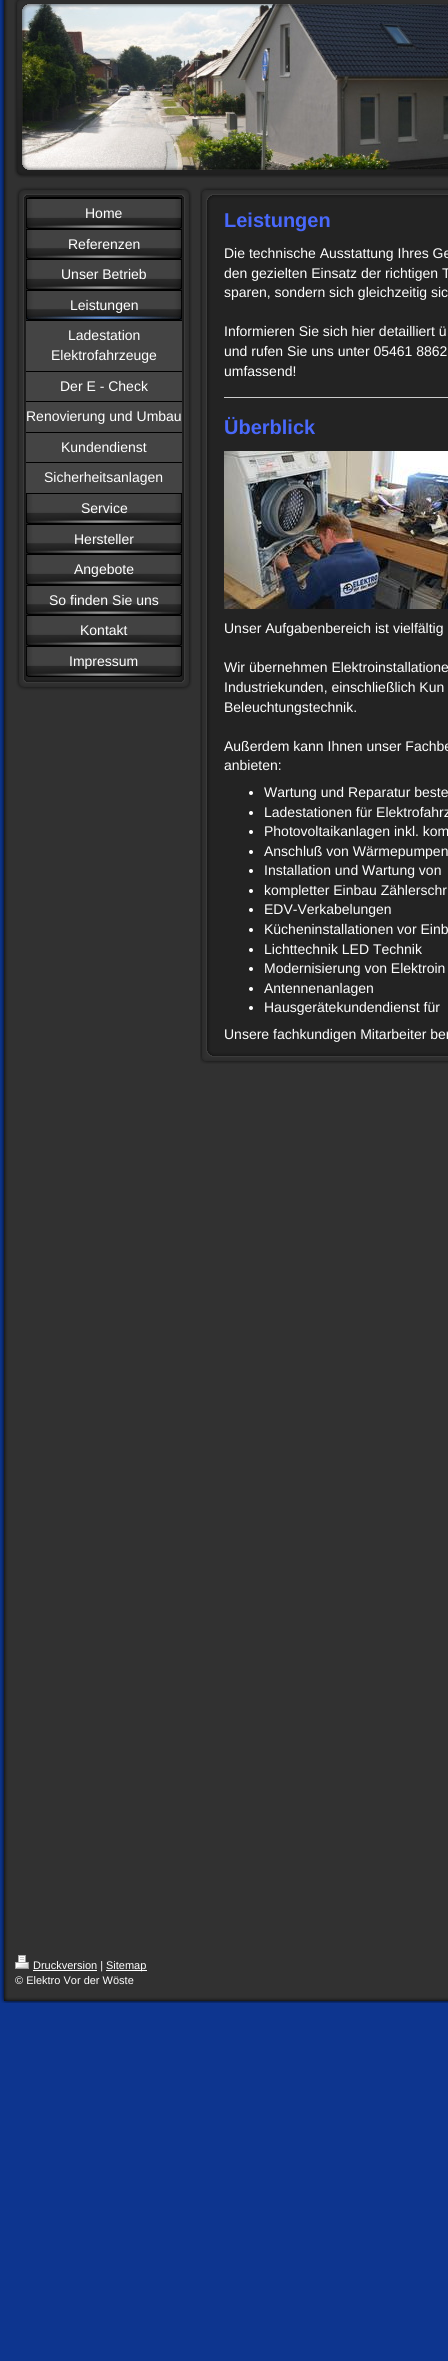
#include <cairo.h>
#include <math.h>
#include <stddef.h>

typedef struct { const char *family; double size; int italic, bold; unsigned color; } style_t;
static cairo_t *ctx;

static void ink(unsigned color) {
    cairo_set_source_rgb(ctx, (color >> 16) / 255.0, (color >> 8 & 255) / 255.0, (color & 255) / 255.0);
}

static void write(double x, double y, const char *s, const style_t *st) {
    cairo_select_font_face(ctx, st->family, st->italic ? CAIRO_FONT_SLANT_ITALIC : CAIRO_FONT_SLANT_NORMAL,
        st->bold ? CAIRO_FONT_WEIGHT_BOLD : CAIRO_FONT_WEIGHT_NORMAL);
    cairo_set_font_size(ctx, st->size);
    ink(st->color);
    cairo_move_to(ctx, x, y);
    cairo_show_text(ctx, s);
}

static void block(double x, double y, double w, double h, unsigned color) {
    ink(color);
    cairo_rectangle(ctx, x, y, w, h);
    cairo_fill(ctx);
}

static void paste(const char *path, double x, double y, double w, double h) {
    cairo_surface_t *image = cairo_image_surface_create_from_png(path);
    cairo_save(ctx);
    cairo_set_source_surface(ctx, image, x, y);
    cairo_rectangle(ctx, x, y, w, h);
    cairo_fill(ctx);
    cairo_restore(ctx);
    cairo_surface_destroy(image);
}

static const style_t s1 = {"Liberation Sans", 14, 0, 0, 0xffffff};
static const style_t s2 = {"Liberation Sans", 20, 0, 1, 0x4868fb};
static const style_t s3 = {"Liberation Sans", 11, 0, 0, 0xffffff};

int main(void) {
    cairo_surface_t *surface = cairo_image_surface_create(CAIRO_FORMAT_RGB24, 448, 2361);
    ctx = cairo_create(surface);
    cairo_font_options_t *options = cairo_font_options_create();
    cairo_font_options_set_hint_metrics(options, CAIRO_HINT_METRICS_OFF);
    cairo_font_options_set_hint_style(options, CAIRO_HINT_STYLE_NONE);
    cairo_set_font_options(ctx, options);
    cairo_set_miter_limit(ctx, 4);
    ink(0x0d358f);
    cairo_paint(ctx);
    paste("pic1.png", 0, 0, 448, 1996);
    paste("pic4.png", 22, 4, 426, 166);
    paste("pic2.png", 14, 0, 434, 11);
    paste("pic3.png", 14, 11, 12, 152);
    paste("pic5.png", 14, 163, 434, 15);
    paste("pic6.png", 16, 198, 176, 482);
    paste("pic7.png", 16, 186, 176, 12);
    paste("pic8.png", 26, 199, 156, 30);
    block(26, 198, 156, 1, 0x000000);
    write(85, 218, "Home", &s1);
    paste("pic9.png", 26, 230, 156, 29);
    block(26, 229, 156, 1, 0x000000);
    write(68, 249, "Referenzen", &s1);
    paste("pic8.png", 26, 260, 156, 30);
    block(26, 259, 156, 1, 0x000000);
    write(61, 279, "Unser Betrieb", &s1);
    block(27, 316, 154, 4, 0x568fe6);
    paste("pic10.png", 26, 291, 156, 29);
    block(26, 290, 156, 1, 0x000000);
    write(70, 310, "Leistungen", &s1);
    block(26, 321, 156, 50, 0x444444);
    block(26, 320, 156, 1, 0x000000);
    write(68, 340, "Ladestation", &s1);
    write(51, 360, "Elektrofahrzeuge", &s1);
    block(26, 372, 156, 29, 0x444444);
    block(26, 371, 156, 1, 0x000000);
    write(60, 391, "Der E - Check", &s1);
    block(26, 402, 156, 30, 0x444444);
    block(26, 401, 156, 1, 0x000000);
    write(26, 421, "Renovierung und Umbau", &s1);
    block(26, 433, 156, 29, 0x444444);
    block(26, 432, 156, 1, 0x000000);
    write(61, 452, "Kundendienst", &s1);
    block(26, 463, 156, 30, 0x444444);
    block(26, 462, 156, 1, 0x000000);
    write(44, 482, "Sicherheitsanlagen", &s1);
    paste("pic8.png", 26, 494, 156, 30);
    block(26, 493, 156, 1, 0x000000);
    write(81, 513, "Service", &s1);
    paste("pic9.png", 26, 525, 156, 29);
    block(26, 524, 156, 1, 0x000000);
    write(74, 544, "Hersteller", &s1);
    paste("pic8.png", 26, 555, 156, 30);
    block(26, 554, 156, 1, 0x000000);
    write(74, 574, "Angebote", &s1);
    paste("pic9.png", 26, 586, 156, 29);
    block(26, 585, 156, 1, 0x000000);
    write(49, 605, "So finden Sie uns", &s1);
    paste("pic8.png", 26, 616, 156, 30);
    block(26, 615, 156, 1, 0x000000);
    write(80, 635, "Kontakt", &s1);
    paste("pic8.png", 26, 647, 156, 30);
    block(26, 646, 156, 1, 0x000000);
    write(69, 666, "Impressum", &s1);
    paste("pic11.png", 16, 680, 176, 11);
    paste("pic12.png", 200, 200, 248, 851);
    paste("pic13.png", 200, 186, 248, 14);
    write(224, 227, "Leistungen", &s2);
    write(224, 258, "Die technische Ausstattung Ihres Ge", &s1);
    write(224, 278, "den gezielten Einsatz der richtigen T", &s1);
    write(224, 297, "sparen, sondern sich gleichzeitig sic", &s1);
    write(224, 336, "Informieren Sie sich hier detailliert ü", &s1);
    write(224, 356, "und rufen Sie uns unter 05461 8862", &s1);
    write(224, 376, "umfassend!", &s1);
    block(224, 397, 224, 1, 0xcccccc);
    write(224, 434, "Überblick", &s2);
    paste("pic14.png", 224, 451, 224, 158);
    write(224, 633, "Unser Aufgabenbereich ist vielfältig", &s1);
    write(224, 672, "Wir übernehmen Elektroinstallatione", &s1);
    write(224, 692, "Industriekunden, einschließlich Kun", &s1);
    write(224, 712, "Beleuchtungstechnik.", &s1);
    write(224, 751, "Außerdem kann Ihnen unser Fachbe", &s1);
    write(224, 770, "anbieten:", &s1);
    cairo_new_path(ctx);
    cairo_arc(ctx, 251, 793, 2, 0, 2 * M_PI);
    cairo_fill(ctx);
    write(264, 797, "Wartung und Reparatur beste", &s1);
    cairo_new_path(ctx);
    cairo_arc(ctx, 251, 813, 2, 0, 2 * M_PI);
    cairo_fill(ctx);
    write(264, 817, "Ladestationen für Elektrofahrz", &s1);
    cairo_new_path(ctx);
    cairo_arc(ctx, 251, 832, 2, 0, 2 * M_PI);
    cairo_fill(ctx);
    write(264, 836, "Photovoltaikanlagen inkl. kom", &s1);
    cairo_new_path(ctx);
    cairo_arc(ctx, 251, 852, 2, 0, 2 * M_PI);
    cairo_fill(ctx);
    write(264, 856, "Anschluß von Wärmepumpen", &s1);
    cairo_new_path(ctx);
    cairo_arc(ctx, 251, 871, 2, 0, 2 * M_PI);
    cairo_fill(ctx);
    write(264, 875, "Installation und Wartung von", &s1);
    cairo_new_path(ctx);
    cairo_arc(ctx, 251, 891, 2, 0, 2 * M_PI);
    cairo_fill(ctx);
    write(264, 895, "kompletter Einbau Zählerschr", &s1);
    cairo_new_path(ctx);
    cairo_arc(ctx, 251, 910, 2, 0, 2 * M_PI);
    cairo_fill(ctx);
    write(264, 914, "EDV-Verkabelungen", &s1);
    cairo_new_path(ctx);
    cairo_arc(ctx, 251, 930, 2, 0, 2 * M_PI);
    cairo_fill(ctx);
    write(264, 934, "Kücheninstallationen vor Einb", &s1);
    cairo_new_path(ctx);
    cairo_arc(ctx, 251, 950, 2, 0, 2 * M_PI);
    cairo_fill(ctx);
    write(264, 954, "Lichttechnik LED Technik", &s1);
    cairo_new_path(ctx);
    cairo_arc(ctx, 251, 969, 2, 0, 2 * M_PI);
    cairo_fill(ctx);
    write(264, 973, "Modernisierung von Elektroin", &s1);
    cairo_new_path(ctx);
    cairo_arc(ctx, 251, 989, 2, 0, 2 * M_PI);
    cairo_fill(ctx);
    write(264, 993, "Antennenanlagen", &s1);
    cairo_new_path(ctx);
    cairo_arc(ctx, 251, 1008, 2, 0, 2 * M_PI);
    cairo_fill(ctx);
    write(264, 1012, "Hausgerätekundendienst für", &s1);
    write(224, 1039, "Unsere fachkundigen Mitarbeiter ber", &s1);
    paste("pic15.png", 200, 1051, 248, 13);
    paste("pic16.png", 15, 1955, 14, 14);
    block(33, 1970, 64, 1, 0xffffff);
    write(33, 1969, "Druckversion |", &s3);
    block(106, 1970, 41, 1, 0xffffff);
    write(106, 1969, "Sitemap", &s3);
    write(15, 1984, "© Elektro Vor der Wöste", &s3);
    paste("pic17.png", 0, 1996, 448, 7);
    cairo_surface_write_to_png(surface, "screenshot.png");
    cairo_font_options_destroy(options);
    cairo_destroy(ctx);
    cairo_surface_destroy(surface);
    return 0;
}
